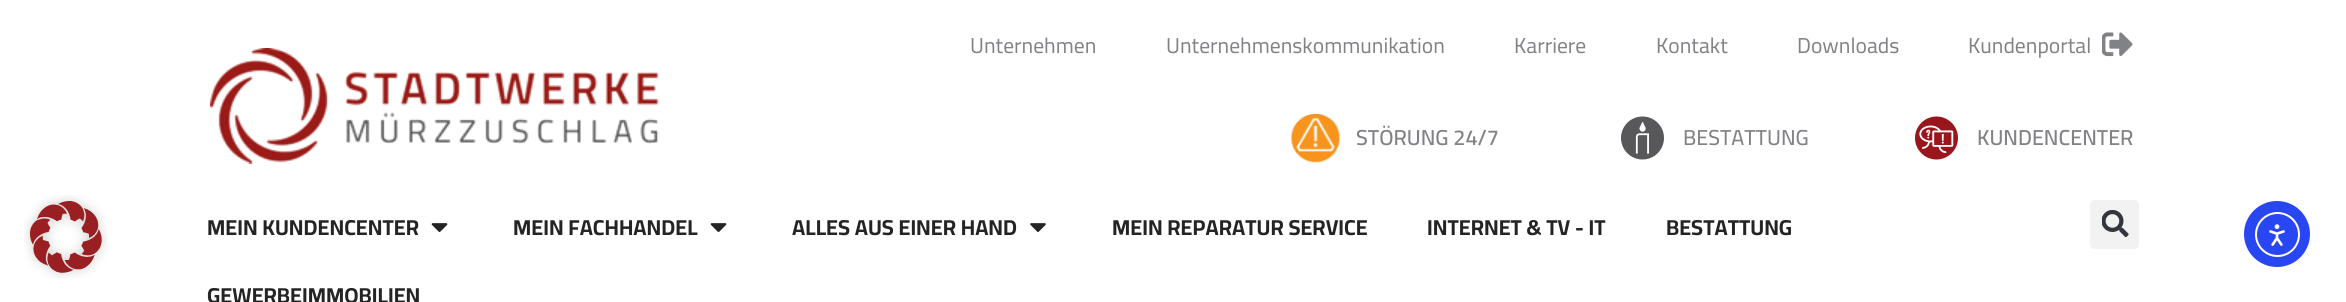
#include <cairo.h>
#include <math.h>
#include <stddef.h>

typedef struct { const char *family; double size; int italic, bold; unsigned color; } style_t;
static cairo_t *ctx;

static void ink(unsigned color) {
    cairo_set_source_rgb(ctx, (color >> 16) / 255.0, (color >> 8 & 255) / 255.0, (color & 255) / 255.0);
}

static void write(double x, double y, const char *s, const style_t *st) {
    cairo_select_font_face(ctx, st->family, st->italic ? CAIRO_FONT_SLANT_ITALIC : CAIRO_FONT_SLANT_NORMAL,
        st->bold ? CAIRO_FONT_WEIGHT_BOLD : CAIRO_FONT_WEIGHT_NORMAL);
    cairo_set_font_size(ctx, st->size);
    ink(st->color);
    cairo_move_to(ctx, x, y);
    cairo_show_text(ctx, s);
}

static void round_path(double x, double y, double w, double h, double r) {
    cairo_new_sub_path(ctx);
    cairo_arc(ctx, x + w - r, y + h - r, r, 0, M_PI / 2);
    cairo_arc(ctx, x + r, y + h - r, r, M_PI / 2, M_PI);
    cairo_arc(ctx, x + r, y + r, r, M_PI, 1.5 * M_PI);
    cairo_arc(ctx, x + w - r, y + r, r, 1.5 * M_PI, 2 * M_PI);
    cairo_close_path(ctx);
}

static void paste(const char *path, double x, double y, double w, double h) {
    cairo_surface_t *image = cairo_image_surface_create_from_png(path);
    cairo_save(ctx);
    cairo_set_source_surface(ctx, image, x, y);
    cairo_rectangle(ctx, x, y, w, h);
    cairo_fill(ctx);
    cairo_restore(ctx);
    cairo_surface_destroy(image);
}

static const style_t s1 = {"Cairo", 21.6, 0, 0, 0x818285};
static const style_t s2 = {"Cairo SemiBold", 21.6, 0, 0, 0x818285};
static const style_t s3 = {"Cairo Medium", 21.6, 0, 0, 0x818285};
static const style_t s4 = {"Cairo", 21.6, 0, 1, 0x242424};

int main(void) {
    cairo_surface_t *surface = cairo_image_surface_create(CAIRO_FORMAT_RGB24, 2346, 302);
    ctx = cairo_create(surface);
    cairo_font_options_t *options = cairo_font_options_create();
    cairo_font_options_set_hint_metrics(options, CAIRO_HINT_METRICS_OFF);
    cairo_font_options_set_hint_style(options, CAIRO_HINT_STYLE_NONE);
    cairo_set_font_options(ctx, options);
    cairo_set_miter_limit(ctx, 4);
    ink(0xffffff);
    cairo_paint(ctx);
    paste("pic1.png", 24, 195, 84, 84);
    paste("pic2.png", 210, 48, 449, 116);
    write(970, 53, "Unternehmen", &s1);
    write(1166, 53, "Unternehmenskommunikation", &s1);
    write(1514, 53, "Karriere", &s1);
    write(1656, 53, "Kontakt", &s1);
    write(1797, 53, "Downloads", &s1);
    write(1968, 53, "Kundenportal", &s1);
    paste("pic3.png", 2102, 32, 31, 25);
    paste("pic4.png", 1291, 114, 50, 49);
    write(1356, 145, "STÖRUNG 24/7", &s2);
    paste("pic5.png", 1621, 116, 43, 44);
    write(1683, 145, "BESTATTUNG", &s3);
    paste("pic6.png", 1915, 116, 43, 44);
    write(1977, 145, "KUNDENCENTER", &s2);
    write(207, 235, "MEIN KUNDENCENTER", &s4);
    paste("pic7.png", 431, 223, 17, 9);
    write(513, 235, "MEIN FACHHANDEL", &s4);
    paste("pic7.png", 710, 223, 17, 9);
    write(792, 235, "ALLES AUS EINER HAND", &s4);
    paste("pic8.png", 1030, 223, 16, 9);
    write(1112, 235, "MEIN REPARATUR SERVICE", &s4);
    write(1427, 235, "INTERNET & TV - IT", &s4);
    write(1666, 235, "BESTATTUNG", &s4);
    write(207, 303, "GEWERBEIMMOBILIEN", &s4);
    ink(0xf2f2f2);
    round_path(2090, 200, 49, 49, 5);
    cairo_fill(ctx);
    paste("pic9.png", 2102, 210, 27, 27);
    ink(0x2847f3);
    cairo_arc(ctx, 2277, 234, 33, 0, 2 * M_PI);
    cairo_fill(ctx);
    cairo_arc(ctx, 2277.5, 234.5, 21.5, 0, 2 * M_PI);
    ink(0xffffff);
    cairo_stroke(ctx);
    paste("pic10.png", 2269, 224, 16, 22);
    cairo_surface_write_to_png(surface, "screenshot.png");
    cairo_font_options_destroy(options);
    cairo_destroy(ctx);
    cairo_surface_destroy(surface);
    return 0;
}
